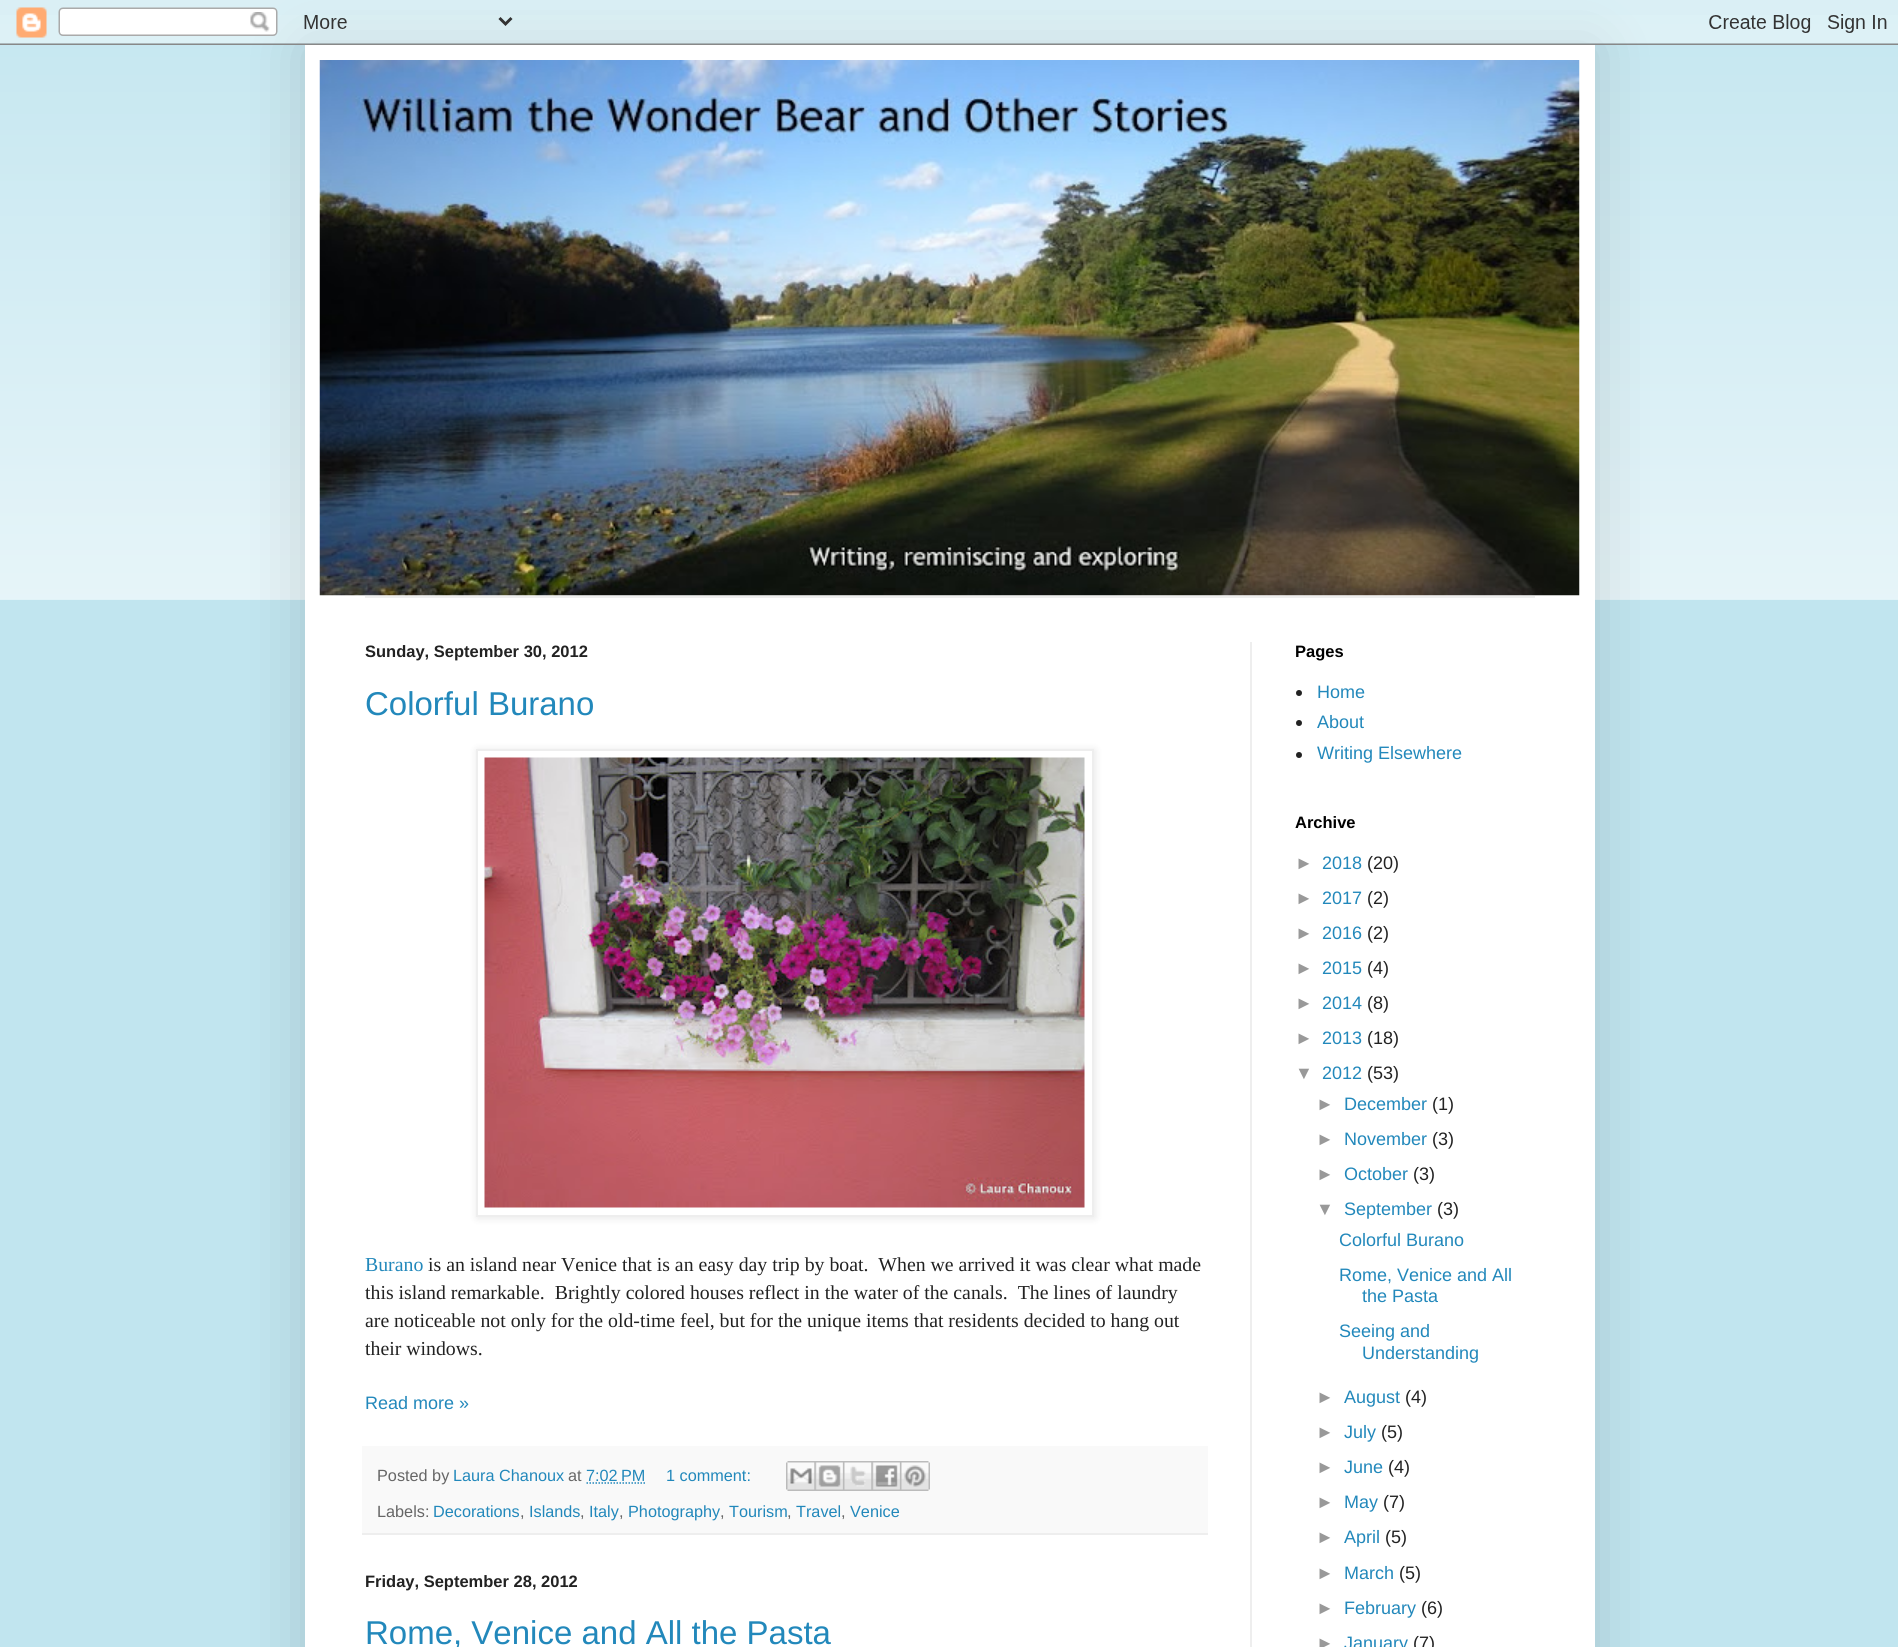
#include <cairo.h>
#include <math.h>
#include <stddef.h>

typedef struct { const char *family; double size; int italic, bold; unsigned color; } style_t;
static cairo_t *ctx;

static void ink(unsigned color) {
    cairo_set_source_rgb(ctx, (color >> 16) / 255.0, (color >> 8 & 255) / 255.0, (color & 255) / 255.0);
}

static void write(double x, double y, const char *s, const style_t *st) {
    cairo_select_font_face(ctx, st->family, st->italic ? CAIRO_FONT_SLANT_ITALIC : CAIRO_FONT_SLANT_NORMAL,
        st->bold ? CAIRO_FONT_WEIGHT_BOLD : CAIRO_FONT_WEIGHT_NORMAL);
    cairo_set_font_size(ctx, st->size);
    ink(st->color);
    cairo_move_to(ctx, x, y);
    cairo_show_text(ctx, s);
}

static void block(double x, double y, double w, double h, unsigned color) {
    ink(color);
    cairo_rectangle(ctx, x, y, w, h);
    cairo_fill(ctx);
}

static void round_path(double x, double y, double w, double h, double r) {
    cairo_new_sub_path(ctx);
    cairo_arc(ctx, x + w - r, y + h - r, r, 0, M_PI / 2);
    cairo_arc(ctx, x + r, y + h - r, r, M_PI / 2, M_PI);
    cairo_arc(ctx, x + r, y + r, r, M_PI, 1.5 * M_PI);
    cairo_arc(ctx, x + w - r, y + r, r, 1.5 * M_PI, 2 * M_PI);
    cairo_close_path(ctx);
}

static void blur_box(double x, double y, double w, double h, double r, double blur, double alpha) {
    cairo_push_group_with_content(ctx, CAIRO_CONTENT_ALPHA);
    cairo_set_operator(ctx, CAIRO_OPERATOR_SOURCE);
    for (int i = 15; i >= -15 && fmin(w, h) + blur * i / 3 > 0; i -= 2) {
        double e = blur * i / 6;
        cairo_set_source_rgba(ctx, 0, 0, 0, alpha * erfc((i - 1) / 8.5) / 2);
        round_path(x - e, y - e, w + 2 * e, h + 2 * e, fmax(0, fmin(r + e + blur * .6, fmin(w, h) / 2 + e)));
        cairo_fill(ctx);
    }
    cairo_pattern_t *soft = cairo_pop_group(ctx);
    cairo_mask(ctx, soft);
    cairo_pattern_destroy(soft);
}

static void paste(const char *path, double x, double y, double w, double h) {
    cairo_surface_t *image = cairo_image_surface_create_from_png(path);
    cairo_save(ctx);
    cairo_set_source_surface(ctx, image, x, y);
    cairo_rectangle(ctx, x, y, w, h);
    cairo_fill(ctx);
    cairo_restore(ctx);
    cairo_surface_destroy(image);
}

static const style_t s1 = {"Liberation Sans", 16.5, 0, 1, 0x222222};
static const style_t s2 = {"Liberation Sans", 33, 0, 0, 0x2288bb};
static const style_t s3 = {"Liberation Serif", 19.8, 0, 0, 0x2288bb};
static const style_t s4 = {"Liberation Serif", 19.8, 0, 0, 0x222222};
static const style_t s5 = {"Liberation Sans", 18, 0, 0, 0x2288bb};
static const style_t s6 = {"Liberation Sans", 16.25, 0, 0, 0x666666};
static const style_t s7 = {"Liberation Sans", 16.25, 0, 0, 0x2288bb};
static const style_t s8 = {"Liberation Sans", 16.5, 0, 1, 0x000000};
static const style_t s9 = {"Liberation Sans", 18, 0, 0, 0x999999};
static const style_t s10 = {"Liberation Sans", 18, 0, 0, 0x222222};

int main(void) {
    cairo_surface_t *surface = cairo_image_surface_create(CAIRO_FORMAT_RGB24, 1898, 1647);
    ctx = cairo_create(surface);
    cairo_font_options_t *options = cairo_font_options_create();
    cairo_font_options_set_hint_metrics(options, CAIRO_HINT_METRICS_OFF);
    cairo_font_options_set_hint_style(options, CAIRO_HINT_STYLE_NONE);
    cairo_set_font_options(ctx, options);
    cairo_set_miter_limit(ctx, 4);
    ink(0xc1e5ef);
    cairo_paint(ctx);
    paste("pic2.png", 0, 15, 1898, 585);
    ink(0x000000);
    blur_box(305, 45, 1290, 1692, 0, 30, 0.15);
    paste("pic1.png", 0, 0, 1898, 45);
    block(305, 45, 1290, 1602, 0xffffff);
    paste("pic3.png", 319, 60, 1261, 536);
    block(365, 596, 1170, 2, 0xeeeeee);
    block(1250, 642, 2, 1005, 0xeeeeee);
    write(365, 657, "Sunday, September 30, 2012", &s1);
    write(365, 715, "Colorful Burano", &s2);
    ink(0x000000);
    blur_box(477, 750, 618, 468, 0, 4, 0.1);
    ink(0xffffff);
    cairo_rectangle(ctx, 477, 750, 616, 466);
    cairo_fill_preserve(ctx);
    ink(0xeeeeee);
    cairo_stroke(ctx);
    paste("pic4.png", 484, 757, 601, 451);
    write(365, 1271, "Burano", &s3);
    write(428, 1271, "is an island near Venice that is an easy day trip by boat.  When we arrived it was clear what made", &s4);
    write(365, 1299, "this island remarkable.  Brightly colored houses reflect in the water of the canals.  The lines of laundry", &s4);
    write(365, 1327, "are noticeable not only for the old-time feel, but for the unique items that residents decided to hang out", &s4);
    write(365, 1355, "their windows.", &s4);
    write(365, 1409, "Read more »", &s5);
    block(362, 1446, 846, 87, 0xf9f9f9);
    block(362, 1533, 846, 2, 0xeeeeee);
    write(377, 1481, "Posted by", &s6);
    write(453, 1481, "Laura Chanoux", &s7);
    write(568, 1481, "at", &s6);
    write(586, 1481, "7:02 PM", &s7);
    cairo_new_path(ctx);
    cairo_move_to(ctx, 586.5, 1483);
    cairo_line_to(ctx, 645.5, 1483);
    cairo_set_line_width(ctx, 1.5);
    cairo_set_dash(ctx, (double[]){1.5, 1.5}, 2, 0);
    cairo_stroke(ctx);
    write(666, 1481, "1 comment:", &s7);
    paste("pic5.png", 786, 1461, 29, 30);
    paste("pic6.png", 814, 1461, 29, 30);
    paste("pic7.png", 843, 1461, 29, 30);
    paste("pic8.png", 871, 1461, 29, 30);
    paste("pic9.png", 900, 1461, 30, 30);
    write(377, 1517, "Labels:", &s6);
    write(433, 1517, "Decorations", &s7);
    write(520, 1517, ",", &s6);
    write(529, 1517, "Islands", &s7);
    write(580, 1517, ",", &s6);
    write(589, 1517, "Italy", &s7);
    write(619, 1517, ",", &s6);
    write(628, 1517, "Photography", &s7);
    write(720, 1517, ",", &s6);
    write(729, 1517, "Tourism", &s7);
    write(787, 1517, ",", &s6);
    write(796, 1517, "Travel", &s7);
    write(841, 1517, ",", &s6);
    write(850, 1517, "Venice", &s7);
    write(365, 1587, "Friday, September 28, 2012", &s1);
    write(365, 1644, "Rome, Venice and All the Pasta", &s2);
    write(1295, 657, "Pages", &s8);
    ink(0x222222);
    cairo_new_path(ctx);
    cairo_arc(ctx, 1299, 693, 3, 0, 2 * M_PI);
    cairo_fill(ctx);
    write(1317, 698, "Home", &s5);
    ink(0x222222);
    cairo_new_path(ctx);
    cairo_arc(ctx, 1299, 723, 3, 0, 2 * M_PI);
    cairo_fill(ctx);
    write(1317, 728, "About", &s5);
    ink(0x222222);
    cairo_new_path(ctx);
    cairo_arc(ctx, 1299, 755, 3, 0, 2 * M_PI);
    cairo_fill(ctx);
    write(1317, 759, "Writing Elsewhere", &s5);
    write(1295, 828, "Archive", &s8);
    write(1295, 869, "►", &s9);
    write(1322, 869, "2018", &s5);
    write(1367, 869, "(20)", &s10);
    write(1295, 904, "►", &s9);
    write(1322, 904, "2017", &s5);
    write(1367, 904, "(2)", &s10);
    write(1295, 939, "►", &s9);
    write(1322, 939, "2016", &s5);
    write(1367, 939, "(2)", &s10);
    write(1295, 974, "►", &s9);
    write(1322, 974, "2015", &s5);
    write(1367, 974, "(4)", &s10);
    write(1295, 1009, "►", &s9);
    write(1322, 1009, "2014", &s5);
    write(1367, 1009, "(8)", &s10);
    write(1295, 1044, "►", &s9);
    write(1322, 1044, "2013", &s5);
    write(1367, 1044, "(18)", &s10);
    write(1295, 1079, "▼", &s9);
    write(1322, 1079, "2012", &s5);
    write(1367, 1079, "(53)", &s10);
    write(1316, 1110, "►", &s9);
    write(1344, 1110, "December", &s5);
    write(1432, 1110, "(1)", &s10);
    write(1316, 1145, "►", &s9);
    write(1344, 1145, "November", &s5);
    write(1432, 1145, "(3)", &s10);
    write(1316, 1180, "►", &s9);
    write(1344, 1180, "October", &s5);
    write(1413, 1180, "(3)", &s10);
    write(1316, 1215, "▼", &s9);
    write(1344, 1215, "September", &s5);
    write(1437, 1215, "(3)", &s10);
    write(1339, 1246, "Colorful Burano", &s5);
    write(1339, 1281, "Rome, Venice and All", &s5);
    write(1362, 1302, "the Pasta", &s5);
    write(1339, 1337, "Seeing and", &s5);
    write(1362, 1359, "Understanding", &s5);
    write(1316, 1403, "►", &s9);
    write(1344, 1403, "August", &s5);
    write(1405, 1403, "(4)", &s10);
    write(1316, 1438, "►", &s9);
    write(1344, 1438, "July", &s5);
    write(1381, 1438, "(5)", &s10);
    write(1316, 1473, "►", &s9);
    write(1344, 1473, "June", &s5);
    write(1388, 1473, "(4)", &s10);
    write(1316, 1508, "►", &s9);
    write(1344, 1508, "May", &s5);
    write(1383, 1508, "(7)", &s10);
    write(1316, 1543, "►", &s9);
    write(1344, 1543, "April", &s5);
    write(1385, 1543, "(5)", &s10);
    write(1316, 1579, "►", &s9);
    write(1344, 1579, "March", &s5);
    write(1399, 1579, "(5)", &s10);
    write(1316, 1614, "►", &s9);
    write(1344, 1614, "February", &s5);
    write(1421, 1614, "(6)", &s10);
    write(1316, 1649, "►", &s9);
    write(1344, 1649, "January", &s5);
    write(1413, 1649, "(7)", &s10);
    cairo_surface_write_to_png(surface, "screenshot.png");
    cairo_font_options_destroy(options);
    cairo_destroy(ctx);
    cairo_surface_destroy(surface);
    return 0;
}
